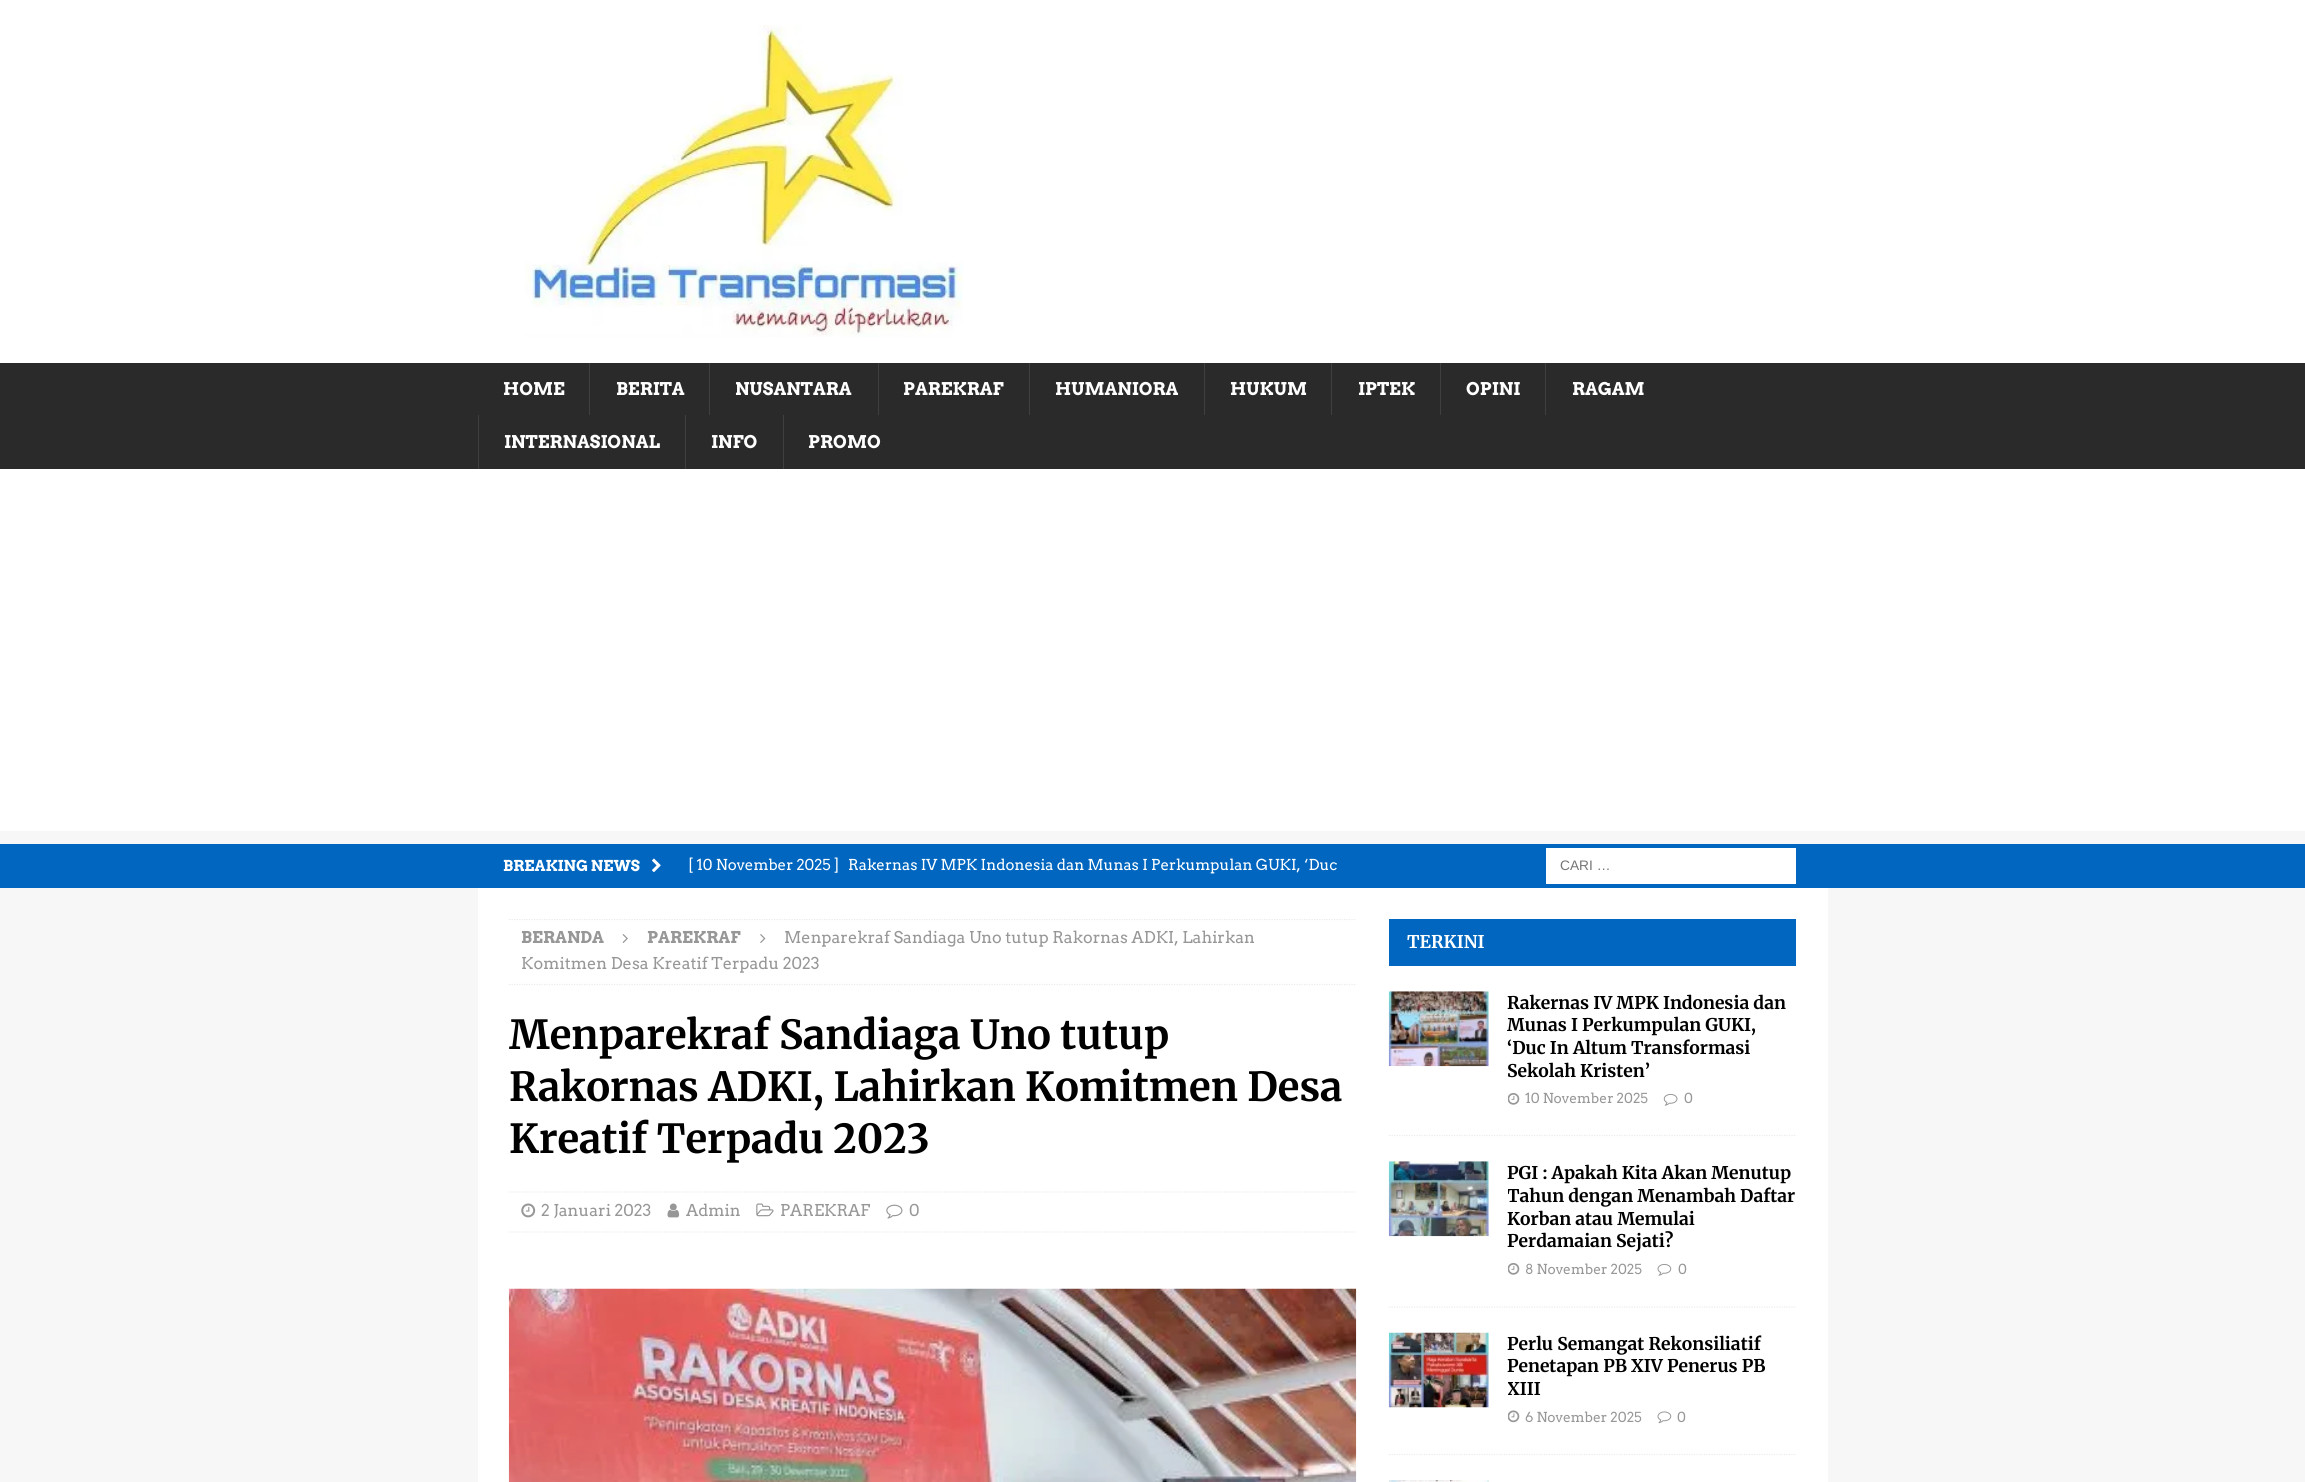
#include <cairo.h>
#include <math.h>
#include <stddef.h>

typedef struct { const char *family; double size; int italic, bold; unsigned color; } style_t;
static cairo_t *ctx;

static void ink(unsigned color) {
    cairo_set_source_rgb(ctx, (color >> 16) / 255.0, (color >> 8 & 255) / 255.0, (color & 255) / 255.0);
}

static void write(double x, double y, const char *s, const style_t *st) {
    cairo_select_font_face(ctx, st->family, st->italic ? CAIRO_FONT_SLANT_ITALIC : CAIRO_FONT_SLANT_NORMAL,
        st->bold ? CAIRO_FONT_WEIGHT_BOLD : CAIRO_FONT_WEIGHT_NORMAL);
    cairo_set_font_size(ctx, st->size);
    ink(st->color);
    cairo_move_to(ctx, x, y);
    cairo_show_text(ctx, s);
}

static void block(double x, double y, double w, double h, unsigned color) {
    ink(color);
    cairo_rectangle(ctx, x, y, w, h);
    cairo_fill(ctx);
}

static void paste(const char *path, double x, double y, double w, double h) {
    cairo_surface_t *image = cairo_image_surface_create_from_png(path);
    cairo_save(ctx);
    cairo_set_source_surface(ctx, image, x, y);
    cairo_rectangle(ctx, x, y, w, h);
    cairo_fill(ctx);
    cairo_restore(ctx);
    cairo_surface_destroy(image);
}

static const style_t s1 = {"Arvo", 17.5, 0, 1, 0xffffff};
static const style_t s2 = {"Arvo", 15, 0, 1, 0xffffff};
static const style_t s3 = {"Arvo", 15, 0, 0, 0xffffff};
static const style_t s4 = {"Liberation Sans", 13.75, 0, 0, 0x757575};
static const style_t s5 = {"Arvo", 16.25, 0, 1, 0x979797};
static const style_t s6 = {"Arvo", 16.25, 0, 0, 0x979797};
static const style_t s7 = {"Merriweather", 40, 0, 1, 0x000000};
static const style_t s8 = {"Merriweather", 17.5, 0, 1, 0xffffff};
static const style_t s9 = {"Merriweather", 17.5, 0, 1, 0x000000};
static const style_t s10 = {"Arvo", 13.75, 0, 0, 0x979797};

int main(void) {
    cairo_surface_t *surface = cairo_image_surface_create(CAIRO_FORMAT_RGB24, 2305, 1482);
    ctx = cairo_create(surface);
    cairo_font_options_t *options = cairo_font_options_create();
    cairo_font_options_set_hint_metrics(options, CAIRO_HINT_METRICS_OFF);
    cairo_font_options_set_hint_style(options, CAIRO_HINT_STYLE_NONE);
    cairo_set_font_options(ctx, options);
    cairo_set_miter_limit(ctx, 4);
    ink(0xf7f7f7);
    cairo_paint(ctx);
    block(0, 0, 2305, 831, 0xffffff);
    paste("pic1.png", 525, 25, 438, 312);
    block(0, 363, 2305, 106, 0x2a2a2a);
    write(503, 395, "HOME", &s1);
    block(589, 363, 1, 52, 0x3f3f3f);
    write(616, 395, "BERITA", &s1);
    block(709, 363, 1, 52, 0x3f3f3f);
    write(735, 395, "NUSANTARA", &s1);
    block(878, 363, 1, 52, 0x3f3f3f);
    write(903, 395, "PAREKRAF", &s1);
    block(1029, 363, 1, 52, 0x3f3f3f);
    write(1055, 395, "HUMANIORA", &s1);
    block(1204, 363, 1, 52, 0x3f3f3f);
    write(1230, 395, "HUKUM", &s1);
    block(1331, 363, 1, 52, 0x3f3f3f);
    write(1358, 395, "IPTEK", &s1);
    block(1440, 363, 1, 52, 0x3f3f3f);
    write(1466, 395, "OPINI", &s1);
    block(1545, 363, 1, 52, 0x3f3f3f);
    write(1572, 395, "RAGAM", &s1);
    block(478, 415, 1, 54, 0x3f3f3f);
    write(504, 448, "INTERNASIONAL", &s1);
    block(685, 415, 1, 54, 0x3f3f3f);
    write(711, 448, "INFO", &s1);
    block(783, 415, 1, 54, 0x3f3f3f);
    write(808, 448, "PROMO", &s1);
    block(0, 844, 2305, 44, 0x0066bf);
    write(503, 871, "BREAKING NEWS", &s2);
    paste("pic2.png", 652, 858, 9, 14);
    write(688, 870, "[ 10 November 2025 ]", &s3);
    write(848, 870, "Rakernas IV MPK Indonesia dan Munas I Perkumpulan GUKI, ‘Duc", &s3);
    block(1546, 848, 250, 36, 0xffffff);
    write(1560, 870, "CARI …", &s4);
    block(478, 888, 1350, 594, 0xffffff);
    cairo_save(ctx);
    cairo_rectangle(ctx, 509, 919, 847, 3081);
    cairo_clip(ctx);
    cairo_new_path(ctx);
    cairo_move_to(ctx, 509, 919.5);
    cairo_line_to(ctx, 1356, 919.5);
    ink(0xebebeb);
    cairo_set_line_width(ctx, 1.2);
    cairo_set_dash(ctx, (double[]){1.25, 1.25}, 2, 0);
    cairo_stroke(ctx);
    cairo_restore(ctx);
    cairo_new_path(ctx);
    cairo_move_to(ctx, 509, 984.5);
    cairo_line_to(ctx, 1356, 984.5);
    ink(0xebebeb);
    cairo_set_line_width(ctx, 1.2);
    cairo_set_dash(ctx, (double[]){1.25, 1.25}, 2, 0);
    cairo_stroke(ctx);
    write(521, 943, "BERANDA", &s5);
    paste("pic3.png", 622, 934, 6, 9);
    write(647, 943, "PAREKRAF", &s5);
    paste("pic4.png", 760, 934, 6, 9);
    write(784, 943, "Menparekraf Sandiaga Uno tutup Rakornas ADKI, Lahirkan", &s6);
    write(521, 969, "Komitmen Desa Kreatif Terpadu 2023", &s6);
    write(509, 1049, "Menparekraf Sandiaga Uno tutup", &s7);
    write(509, 1101, "Rakornas ADKI, Lahirkan Komitmen Desa", &s7);
    write(509, 1153, "Kreatif Terpadu 2023", &s7);
    cairo_new_path(ctx);
    cairo_move_to(ctx, 509, 1192);
    cairo_line_to(ctx, 1356, 1192);
    ink(0xebebeb);
    cairo_stroke(ctx);
    cairo_new_path(ctx);
    cairo_move_to(ctx, 509, 1232);
    cairo_line_to(ctx, 1356, 1232);
    cairo_stroke(ctx);
    paste("pic5.png", 521, 1203, 15, 15);
    write(541, 1216, "2 Januari 2023", &s6);
    paste("pic6.png", 667, 1203, 13, 15);
    write(686, 1216, "Admin", &s6);
    paste("pic7.png", 756, 1203, 18, 14);
    write(780, 1216, "PAREKRAF", &s6);
    paste("pic8.png", 886, 1204, 17, 15);
    write(909, 1216, "0", &s6);
    paste("pic9.png", 508, 1288, 849, 194);
    block(1389, 919, 407, 47, 0x0066bf);
    write(1407, 948, "TERKINI", &s8);
    cairo_new_path(ctx);
    cairo_move_to(ctx, 1389, 1135.5);
    cairo_line_to(ctx, 1796, 1135.5);
    ink(0xebebeb);
    cairo_stroke(ctx);
    paste("pic10.png", 1388, 991, 101, 76);
    write(1507, 1009, "Rakernas IV MPK Indonesia dan", &s9);
    write(1507, 1031, "Munas I Perkumpulan GUKI,", &s9);
    write(1507, 1054, "‘Duc In Altum Transformasi", &s9);
    write(1507, 1077, "Sekolah Kristen’", &s9);
    paste("pic11.png", 1508, 1093, 12, 12);
    write(1525, 1103, "10 November 2025", &s10);
    paste("pic12.png", 1663, 1093, 15, 13);
    write(1684, 1103, "0", &s10);
    cairo_new_path(ctx);
    cairo_move_to(ctx, 1389, 1307);
    cairo_line_to(ctx, 1796, 1307);
    ink(0xebebeb);
    cairo_stroke(ctx);
    paste("pic13.png", 1388, 1161, 101, 76);
    write(1507, 1179, "PGI : Apakah Kita Akan Menutup", &s9);
    cairo_save(ctx);
    cairo_rectangle(ctx, 1508, 1161, 288, 120);
    cairo_clip(ctx);
    write(1507, 1202, "Tahun dengan Menambah Daftar", &s9);
    cairo_restore(ctx);
    write(1507, 1225, "Korban atau Memulai", &s9);
    write(1507, 1247, "Perdamaian Sejati?", &s9);
    paste("pic11.png", 1508, 1263, 12, 12);
    write(1525, 1274, "8 November 2025", &s10);
    paste("pic14.png", 1657, 1263, 15, 13);
    write(1678, 1274, "0", &s10);
    cairo_new_path(ctx);
    cairo_move_to(ctx, 1389, 1454.5);
    cairo_line_to(ctx, 1796, 1454.5);
    ink(0xebebeb);
    cairo_stroke(ctx);
    paste("pic15.png", 1388, 1332, 101, 76);
    write(1507, 1350, "Perlu Semangat Rekonsiliatif", &s9);
    write(1507, 1372, "Penetapan PB XIV Penerus PB", &s9);
    cairo_save(ctx);
    cairo_rectangle(ctx, 1508, 1333, 288, 96);
    cairo_clip(ctx);
    write(1507, 1395, "XIII", &s9);
    cairo_restore(ctx);
    paste("pic16.png", 1508, 1410, 12, 13);
    write(1525, 1422, "6 November 2025", &s10);
    paste("pic17.png", 1657, 1411, 15, 13);
    write(1677, 1422, "0", &s10);
    paste("pic18.png", 1389, 1480, 100, 2);
    cairo_surface_write_to_png(surface, "screenshot.png");
    cairo_font_options_destroy(options);
    cairo_destroy(ctx);
    cairo_surface_destroy(surface);
    return 0;
}
